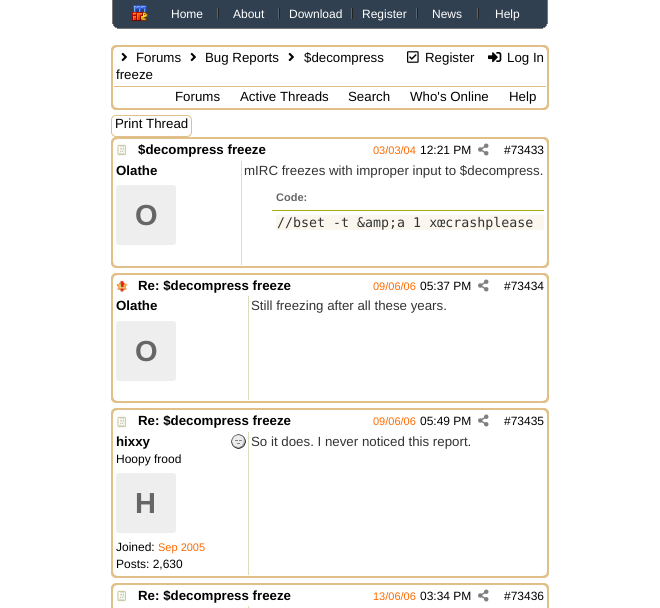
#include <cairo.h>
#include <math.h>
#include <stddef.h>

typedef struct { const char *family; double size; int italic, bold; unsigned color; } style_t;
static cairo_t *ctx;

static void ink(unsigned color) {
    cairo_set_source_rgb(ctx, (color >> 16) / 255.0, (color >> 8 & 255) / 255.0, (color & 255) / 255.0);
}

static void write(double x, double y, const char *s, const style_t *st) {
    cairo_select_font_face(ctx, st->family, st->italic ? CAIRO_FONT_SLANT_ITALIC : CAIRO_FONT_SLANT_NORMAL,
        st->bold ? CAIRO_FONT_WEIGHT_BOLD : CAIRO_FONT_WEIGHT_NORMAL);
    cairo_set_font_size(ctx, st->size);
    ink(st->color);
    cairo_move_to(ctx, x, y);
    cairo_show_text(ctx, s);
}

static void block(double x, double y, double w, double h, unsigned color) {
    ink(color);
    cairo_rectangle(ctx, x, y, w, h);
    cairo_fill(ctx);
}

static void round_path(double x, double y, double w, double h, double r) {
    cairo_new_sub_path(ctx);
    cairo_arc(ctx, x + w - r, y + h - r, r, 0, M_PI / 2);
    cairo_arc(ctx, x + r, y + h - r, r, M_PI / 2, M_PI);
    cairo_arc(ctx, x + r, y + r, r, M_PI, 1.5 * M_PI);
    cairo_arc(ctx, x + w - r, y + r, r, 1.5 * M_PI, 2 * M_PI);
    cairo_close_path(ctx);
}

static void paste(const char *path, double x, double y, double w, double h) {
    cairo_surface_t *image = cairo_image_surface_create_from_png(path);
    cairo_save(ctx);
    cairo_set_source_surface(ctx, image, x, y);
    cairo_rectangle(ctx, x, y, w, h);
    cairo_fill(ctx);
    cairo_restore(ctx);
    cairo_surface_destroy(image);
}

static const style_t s1 = {"Liberation Sans", 12, 0, 0, 0xffffff};
static const style_t s2 = {"Liberation Sans", 13.3, 0, 0, 0x000000};
static const style_t s3 = {"Liberation Sans", 13.3, 0, 1, 0x000000};
static const style_t s4 = {"Liberation Sans", 11, 0, 0, 0xff6a00};
static const style_t s5 = {"Liberation Sans", 12, 0, 0, 0x000000};
static const style_t s6 = {"Liberation Sans", 29, 0, 1, 0x666666};
static const style_t s7 = {"Liberation Sans", 13.3, 0, 0, 0x333333};
static const style_t s8 = {"Liberation Sans", 11, 0, 1, 0x666666};
static const style_t s9 = {"DejaVu Sans Mono", 13.3, 0, 0, 0x333333};

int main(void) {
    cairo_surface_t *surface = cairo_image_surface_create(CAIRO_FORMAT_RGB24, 660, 608);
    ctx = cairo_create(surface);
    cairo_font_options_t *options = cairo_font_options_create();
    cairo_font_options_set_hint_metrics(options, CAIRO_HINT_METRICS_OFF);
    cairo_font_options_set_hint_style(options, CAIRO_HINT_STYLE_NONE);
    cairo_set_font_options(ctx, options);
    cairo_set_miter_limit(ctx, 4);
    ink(0xffffff);
    cairo_paint(ctx);
    block(113, 0, 434, 26, 0x304050);
    block(547, 0, 1, 24, 0x777777);
    block(112, 0, 1, 24, 0x777777);
    paste("pic1.png", 132, 5, 16, 16);
    write(171, 18, "Home", &s1);
    block(217, 8, 1, 11, 0x556677);
    block(218, 8, 1, 11, 0x222222);
    write(233, 18, "About", &s1);
    block(278, 8, 1, 11, 0x556677);
    block(279, 8, 1, 11, 0x222222);
    write(289, 18, "Download", &s1);
    block(351, 8, 1, 11, 0x556677);
    block(352, 8, 1, 11, 0x222222);
    write(362, 18, "Register", &s1);
    block(416, 8, 1, 11, 0x556677);
    block(417, 8, 1, 11, 0x222222);
    write(432, 18, "News", &s1);
    block(477, 8, 1, 11, 0x556677);
    block(478, 8, 1, 11, 0x222222);
    write(495, 18, "Help", &s1);
    block(546, 24, 1, 2, 0x777777);
    block(113, 24, 1, 2, 0x777777);
    block(114, 26, 432, 1, 0x304050);
    block(545, 26, 1, 1, 0x777777);
    block(114, 26, 1, 1, 0x777777);
    block(115, 27, 430, 1, 0x304050);
    block(543, 27, 2, 1, 0x777777);
    block(115, 27, 2, 1, 0x777777);
    block(117, 28, 426, 1, 0x777777);
    ink(0xe0c088);
    round_path(111.5, 45.5, 437, 64, 4.5);
    cairo_fill_preserve(ctx);
    cairo_set_line_width(ctx, 1);
    cairo_stroke(ctx);
    round_path(113.5, 47.5, 433, 60, 4.5);
    ink(0xffffff);
    cairo_stroke(ctx);
    block(114, 48, 432, 38, 0xffffff);
    paste("pic2.png", 121, 52, 6, 10);
    write(136, 62, "Forums", &s2);
    paste("pic2.png", 190, 52, 6, 10);
    write(205, 62, "Bug Reports", &s2);
    paste("pic2.png", 288, 52, 6, 10);
    write(304, 62, "$decompress", &s2);
    write(116, 79, "freeze", &s2);
    paste("pic3.png", 407, 51, 12, 12);
    write(425, 62, "Register", &s2);
    paste("pic4.png", 488, 52, 14, 11);
    write(507, 62, "Log In", &s2);
    block(114, 87, 432, 20, 0xffffff);
    write(175, 101, "Forums", &s2);
    write(240, 101, "Active Threads", &s2);
    write(348, 101, "Search", &s2);
    write(410, 101, "Who's Online", &s2);
    write(509, 101, "Help", &s2);
    round_path(111.5, 115.5, 80, 21, 4.5);
    ink(0xe0c088);
    cairo_stroke(ctx);
    write(115, 128, "Print Thread", &s2);
    ink(0xe0c088);
    round_path(111.5, 137.5, 437, 130, 4.5);
    cairo_fill_preserve(ctx);
    cairo_stroke(ctx);
    round_path(113.5, 139.5, 433, 126, 4.5);
    ink(0xffffff);
    cairo_stroke(ctx);
    block(114, 140, 432, 21, 0xffffff);
    paste("pic5.png", 117, 144, 9, 12);
    write(138, 154, "$decompress freeze", &s3);
    write(373, 154, "03/03/04", &s4);
    write(420, 154, "12:21 PM", &s5);
    paste("pic6.png", 478, 143, 11, 13);
    write(504, 154, "#73433", &s5);
    block(114, 161, 127, 104, 0xffffff);
    write(116, 175, "Olathe", &s3);
    ink(0xeeeeee);
    round_path(116, 185, 60, 60, 3);
    cairo_fill(ctx);
    write(135, 225, "O", &s6);
    block(242, 161, 304, 104, 0xffffff);
    block(241, 161, 1, 104, 0xddddbb);
    write(244, 175, "mIRC freezes with improper input to $decompress.", &s7);
    block(272, 210, 272, 1, 0xaaaa11);
    write(276, 201, "Code:", &s8);
    block(276, 215, 268, 15, 0xfbf7ef);
    write(277, 227, "//bset -t &amp;a 1 xœcrashplease", &s9);
    ink(0xe0c088);
    round_path(111.5, 273.5, 437, 129, 4.5);
    cairo_fill_preserve(ctx);
    cairo_stroke(ctx);
    round_path(113.5, 275.5, 433, 125, 4.5);
    ink(0xffffff);
    cairo_stroke(ctx);
    block(114, 276, 432, 20, 0xffffff);
    paste("pic7.png", 116, 280, 12, 12);
    write(138, 290, "Re: $decompress freeze", &s3);
    write(373, 290, "09/06/06", &s4);
    write(420, 290, "05:37 PM", &s5);
    paste("pic6.png", 478, 279, 11, 13);
    write(504, 290, "#73434", &s5);
    block(114, 296, 134, 104, 0xffffff);
    write(116, 310, "Olathe", &s3);
    ink(0xeeeeee);
    round_path(116, 321, 60, 60, 3);
    cairo_fill(ctx);
    write(135, 361, "O", &s6);
    block(249, 296, 297, 104, 0xffffff);
    block(248, 296, 1, 104, 0xddddbb);
    write(251, 310, "Still freezing after all these years.", &s7);
    ink(0xe0c088);
    round_path(111.5, 408.5, 437, 169, 4.5);
    cairo_fill_preserve(ctx);
    cairo_stroke(ctx);
    round_path(113.5, 410.5, 433, 165, 4.5);
    ink(0xffffff);
    cairo_stroke(ctx);
    block(114, 411, 432, 21, 0xffffff);
    paste("pic5.png", 117, 416, 9, 12);
    write(138, 425, "Re: $decompress freeze", &s3);
    write(373, 425, "09/06/06", &s4);
    write(420, 425, "05:49 PM", &s5);
    paste("pic6.png", 478, 414, 11, 13);
    write(504, 425, "#73435", &s5);
    block(114, 432, 134, 143, 0xffffff);
    write(116, 446, "hixxy", &s3);
    paste("pic8.png", 231, 434, 15, 15);
    write(116, 463, "Hoopy frood", &s5);
    ink(0xeeeeee);
    round_path(116, 473, 60, 60, 3);
    cairo_fill(ctx);
    write(135, 513, "H", &s6);
    write(116, 551, "Joined:", &s5);
    write(158, 551, "Sep 2005", &s4);
    write(116, 568, "Posts: 2,630", &s5);
    block(249, 432, 297, 143, 0xffffff);
    block(248, 432, 1, 143, 0xddddbb);
    write(251, 446, "So it does. I never noticed this report.", &s7);
    ink(0xe0c088);
    round_path(111.5, 583.5, 437, 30, 4.5);
    cairo_fill_preserve(ctx);
    cairo_stroke(ctx);
    ink(0xffffff);
    round_path(113.5, 585.5, 433, 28, 4.5);
    cairo_fill_preserve(ctx);
    cairo_stroke(ctx);
    block(114, 586, 432, 1, 0xffffff);
    paste("pic5.png", 117, 590, 9, 12);
    write(138, 600, "Re: $decompress freeze", &s3);
    write(373, 600, "13/06/06", &s4);
    write(420, 600, "03:34 PM", &s5);
    paste("pic6.png", 478, 589, 11, 13);
    write(504, 600, "#73436", &s5);
    block(248, 606, 1, 2, 0xddddbb);
    cairo_surface_write_to_png(surface, "screenshot.png");
    cairo_font_options_destroy(options);
    cairo_destroy(ctx);
    cairo_surface_destroy(surface);
    return 0;
}
